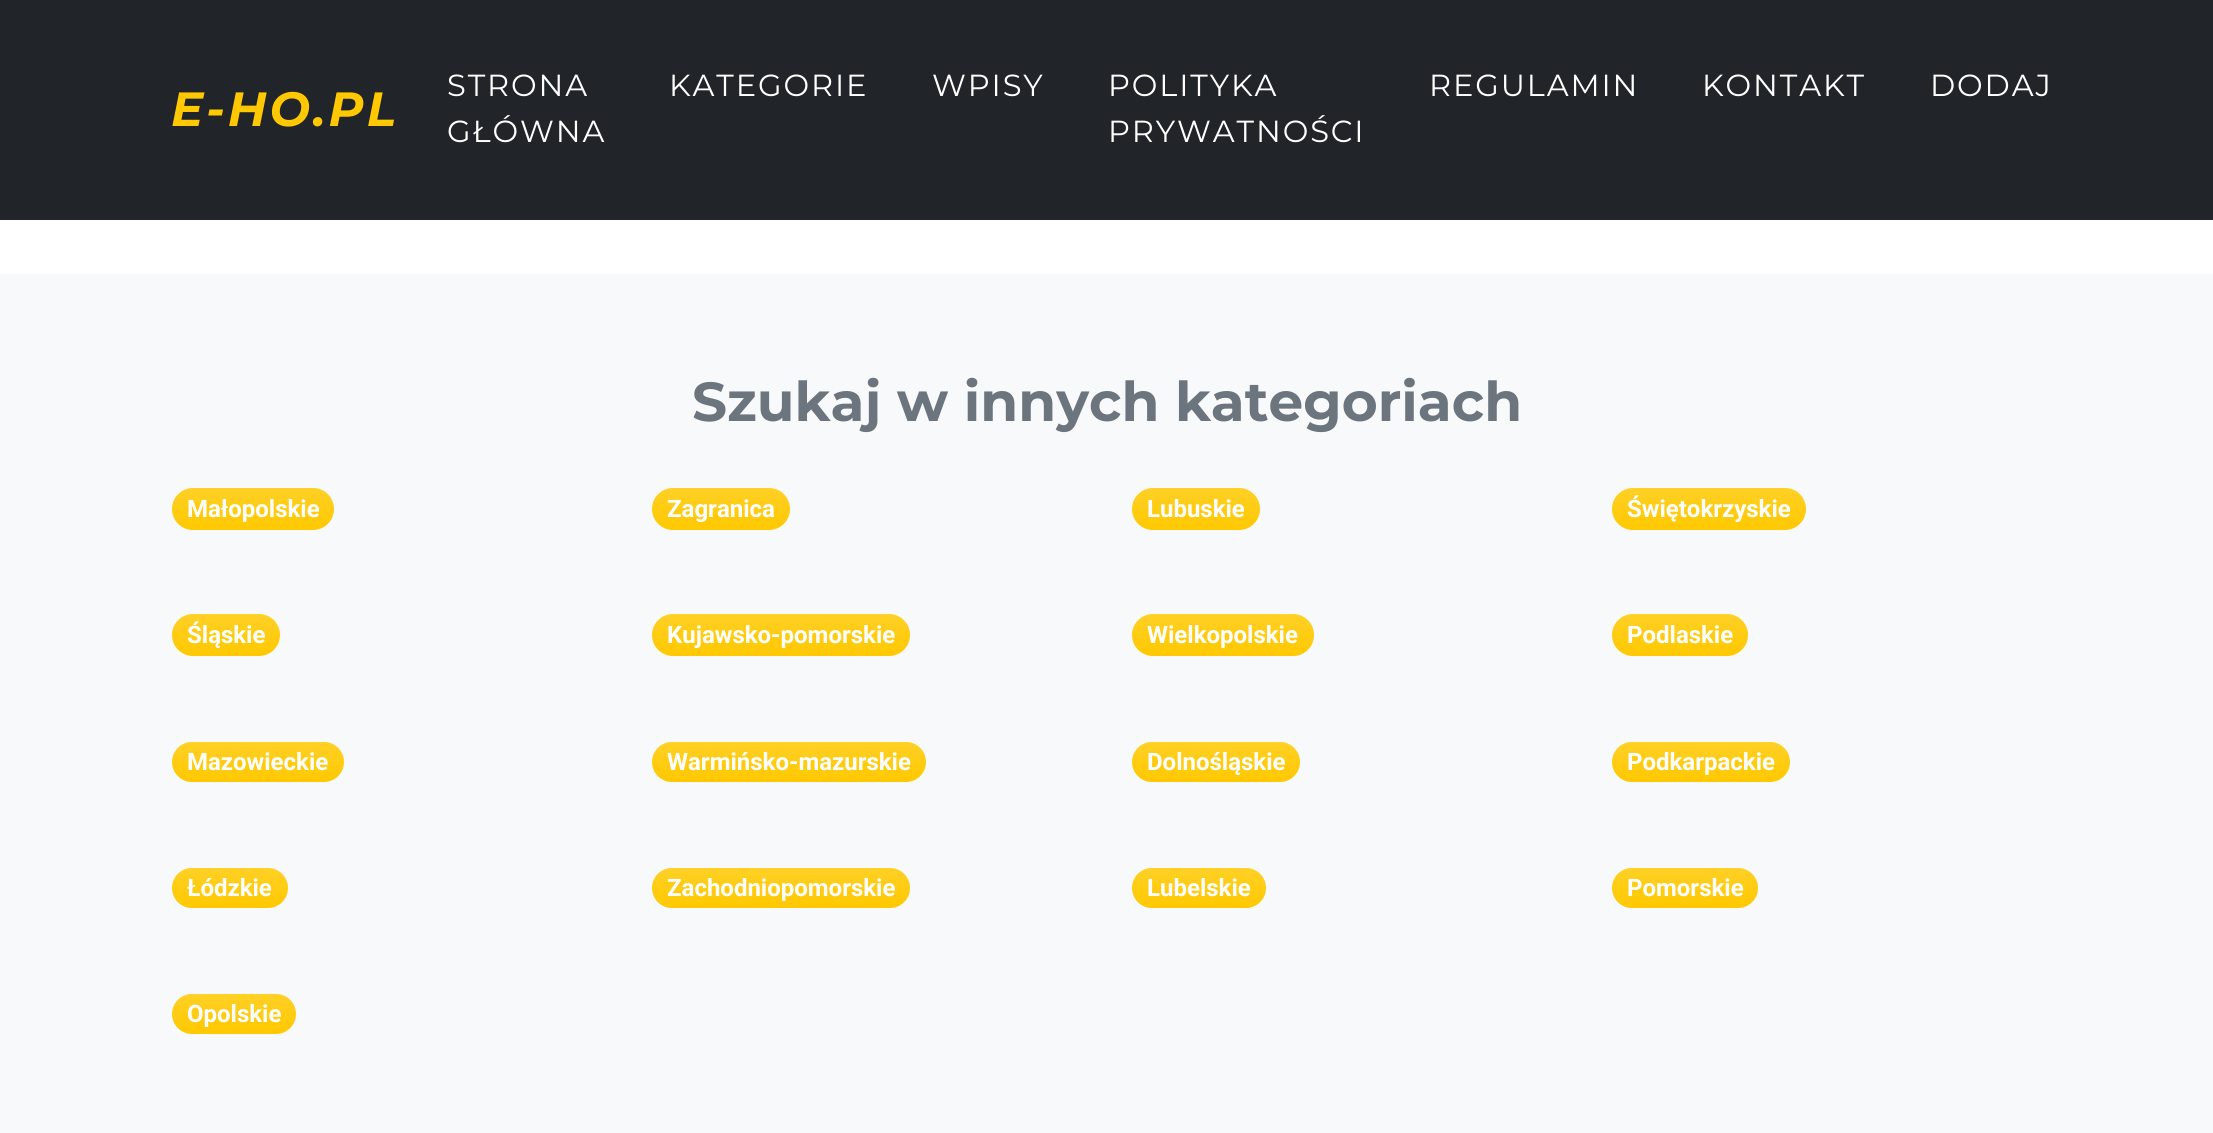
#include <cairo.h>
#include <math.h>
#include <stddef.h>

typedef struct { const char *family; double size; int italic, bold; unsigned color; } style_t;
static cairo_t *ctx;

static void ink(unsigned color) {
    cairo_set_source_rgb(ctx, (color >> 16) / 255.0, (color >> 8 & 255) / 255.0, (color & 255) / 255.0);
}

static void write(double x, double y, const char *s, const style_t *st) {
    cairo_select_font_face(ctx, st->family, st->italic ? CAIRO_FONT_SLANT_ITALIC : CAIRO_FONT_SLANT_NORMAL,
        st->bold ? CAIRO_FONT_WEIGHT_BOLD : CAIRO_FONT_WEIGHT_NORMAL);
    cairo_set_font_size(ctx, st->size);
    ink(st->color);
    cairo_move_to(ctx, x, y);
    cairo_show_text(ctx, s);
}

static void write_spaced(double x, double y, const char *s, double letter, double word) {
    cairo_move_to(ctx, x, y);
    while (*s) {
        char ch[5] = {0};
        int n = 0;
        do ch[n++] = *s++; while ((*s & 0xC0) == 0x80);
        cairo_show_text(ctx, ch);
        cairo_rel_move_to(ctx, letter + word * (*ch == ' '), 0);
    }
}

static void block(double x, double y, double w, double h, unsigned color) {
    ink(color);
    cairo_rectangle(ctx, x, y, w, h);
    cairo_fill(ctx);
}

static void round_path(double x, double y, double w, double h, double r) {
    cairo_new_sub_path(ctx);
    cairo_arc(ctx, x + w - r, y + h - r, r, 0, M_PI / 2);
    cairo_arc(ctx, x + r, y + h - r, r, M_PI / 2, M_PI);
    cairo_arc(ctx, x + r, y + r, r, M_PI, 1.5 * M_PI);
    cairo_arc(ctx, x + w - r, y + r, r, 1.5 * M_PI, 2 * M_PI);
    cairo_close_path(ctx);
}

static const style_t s1 = {"Montserrat", 54.9, 0, 1, 0x6c757d};
static const style_t s2 = {"Roboto", 24, 0, 1, 0xffffff};

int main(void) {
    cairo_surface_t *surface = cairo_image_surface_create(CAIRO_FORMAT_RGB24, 2213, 1133);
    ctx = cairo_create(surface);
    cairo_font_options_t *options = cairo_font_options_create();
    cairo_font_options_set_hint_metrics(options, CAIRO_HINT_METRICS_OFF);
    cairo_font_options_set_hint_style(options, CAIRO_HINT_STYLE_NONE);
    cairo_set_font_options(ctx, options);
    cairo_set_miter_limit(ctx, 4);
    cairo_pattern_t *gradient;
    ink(0xffffff);
    cairo_paint(ctx);
    block(0, 0, 2213, 220, 0x212529);
    cairo_select_font_face(ctx, "Montserrat", CAIRO_FONT_SLANT_ITALIC, CAIRO_FONT_WEIGHT_BOLD);
    cairo_set_font_size(ctx, 48);
    ink(0xffc800);
    write_spaced(171, 126, "E-HO.PL", 3, 0);
    cairo_select_font_face(ctx, "Montserrat", CAIRO_FONT_SLANT_NORMAL, CAIRO_FONT_WEIGHT_NORMAL);
    cairo_set_font_size(ctx, 30.5);
    ink(0xffffff);
    write_spaced(447, 96, "STRONA", 1.9, 0);
    write_spaced(447, 142, "GŁÓWNA", 1.9, 0);
    write_spaced(669, 96, "KATEGORIE", 1.9, 0);
    write_spaced(932, 96, "WPISY", 1.9, 0);
    write_spaced(1108, 96, "POLITYKA", 1.9, 0);
    write_spaced(1108, 142, "PRYWATNOŚCI", 1.9, 0);
    write_spaced(1429, 96, "REGULAMIN", 1.9, 0);
    write_spaced(1702, 96, "KONTAKT", 1.9, 0);
    write_spaced(1930, 96, "DODAJ", 1.9, 0);
    block(0, 274, 2213, 859, 0xf8f9fa);
    write(692, 421, "Szukaj w innych kategoriach", &s1);
    ink(0xffc800);
    round_path(172, 488, 162, 42, 21);
    cairo_fill(ctx);
    gradient = cairo_pattern_create_linear(253, 488, 253, 530);
    cairo_pattern_add_color_stop_rgba(gradient, 0, 1, 1, 1, 0.15);
    cairo_pattern_add_color_stop_rgba(gradient, 1, 1, 1, 1, 0);
    cairo_set_source(ctx, gradient);
    cairo_pattern_destroy(gradient);
    round_path(172, 488, 162, 42, 21);
    cairo_fill(ctx);
    write(187, 517, "Małopolskie", &s2);
    ink(0xffc800);
    round_path(652, 488, 138, 42, 21);
    cairo_fill(ctx);
    gradient = cairo_pattern_create_linear(721, 488, 721, 530);
    cairo_pattern_add_color_stop_rgba(gradient, 0, 1, 1, 1, 0.15);
    cairo_pattern_add_color_stop_rgba(gradient, 1, 1, 1, 1, 0);
    cairo_set_source(ctx, gradient);
    cairo_pattern_destroy(gradient);
    round_path(652, 488, 138, 42, 21);
    cairo_fill(ctx);
    write(667, 517, "Zagranica", &s2);
    ink(0xffc800);
    round_path(1132, 488, 128, 42, 21);
    cairo_fill(ctx);
    gradient = cairo_pattern_create_linear(1196, 488, 1196, 530);
    cairo_pattern_add_color_stop_rgba(gradient, 0, 1, 1, 1, 0.15);
    cairo_pattern_add_color_stop_rgba(gradient, 1, 1, 1, 1, 0);
    cairo_set_source(ctx, gradient);
    cairo_pattern_destroy(gradient);
    round_path(1132, 488, 128, 42, 21);
    cairo_fill(ctx);
    write(1147, 517, "Lubuskie", &s2);
    ink(0xffc800);
    round_path(1612, 488, 194, 42, 21);
    cairo_fill(ctx);
    gradient = cairo_pattern_create_linear(1709, 488, 1709, 530);
    cairo_pattern_add_color_stop_rgba(gradient, 0, 1, 1, 1, 0.15);
    cairo_pattern_add_color_stop_rgba(gradient, 1, 1, 1, 1, 0);
    cairo_set_source(ctx, gradient);
    cairo_pattern_destroy(gradient);
    round_path(1612, 488, 194, 42, 21);
    cairo_fill(ctx);
    write(1627, 517, "Świętokrzyskie", &s2);
    ink(0xffc800);
    round_path(172, 614, 108, 42, 21);
    cairo_fill(ctx);
    gradient = cairo_pattern_create_linear(226, 614, 226, 656);
    cairo_pattern_add_color_stop_rgba(gradient, 0, 1, 1, 1, 0.15);
    cairo_pattern_add_color_stop_rgba(gradient, 1, 1, 1, 1, 0);
    cairo_set_source(ctx, gradient);
    cairo_pattern_destroy(gradient);
    round_path(172, 614, 108, 42, 21);
    cairo_fill(ctx);
    write(187, 643, "Śląskie", &s2);
    ink(0xffc800);
    round_path(652, 614, 258, 42, 21);
    cairo_fill(ctx);
    gradient = cairo_pattern_create_linear(781, 614, 781, 656);
    cairo_pattern_add_color_stop_rgba(gradient, 0, 1, 1, 1, 0.15);
    cairo_pattern_add_color_stop_rgba(gradient, 1, 1, 1, 1, 0);
    cairo_set_source(ctx, gradient);
    cairo_pattern_destroy(gradient);
    round_path(652, 614, 258, 42, 21);
    cairo_fill(ctx);
    write(667, 643, "Kujawsko-pomorskie", &s2);
    ink(0xffc800);
    round_path(1132, 614, 182, 42, 21);
    cairo_fill(ctx);
    gradient = cairo_pattern_create_linear(1223, 614, 1223, 656);
    cairo_pattern_add_color_stop_rgba(gradient, 0, 1, 1, 1, 0.15);
    cairo_pattern_add_color_stop_rgba(gradient, 1, 1, 1, 1, 0);
    cairo_set_source(ctx, gradient);
    cairo_pattern_destroy(gradient);
    round_path(1132, 614, 182, 42, 21);
    cairo_fill(ctx);
    write(1147, 643, "Wielkopolskie", &s2);
    ink(0xffc800);
    round_path(1612, 614, 136, 42, 21);
    cairo_fill(ctx);
    gradient = cairo_pattern_create_linear(1680, 614, 1680, 656);
    cairo_pattern_add_color_stop_rgba(gradient, 0, 1, 1, 1, 0.15);
    cairo_pattern_add_color_stop_rgba(gradient, 1, 1, 1, 1, 0);
    cairo_set_source(ctx, gradient);
    cairo_pattern_destroy(gradient);
    round_path(1612, 614, 136, 42, 21);
    cairo_fill(ctx);
    write(1627, 643, "Podlaskie", &s2);
    ink(0xffc800);
    round_path(172, 742, 172, 40, 20);
    cairo_fill(ctx);
    gradient = cairo_pattern_create_linear(258, 742, 258, 782);
    cairo_pattern_add_color_stop_rgba(gradient, 0, 1, 1, 1, 0.15);
    cairo_pattern_add_color_stop_rgba(gradient, 1, 1, 1, 1, 0);
    cairo_set_source(ctx, gradient);
    cairo_pattern_destroy(gradient);
    round_path(172, 742, 172, 40, 20);
    cairo_fill(ctx);
    write(187, 770, "Mazowieckie", &s2);
    ink(0xffc800);
    round_path(652, 742, 274, 40, 20);
    cairo_fill(ctx);
    gradient = cairo_pattern_create_linear(789, 742, 789, 782);
    cairo_pattern_add_color_stop_rgba(gradient, 0, 1, 1, 1, 0.15);
    cairo_pattern_add_color_stop_rgba(gradient, 1, 1, 1, 1, 0);
    cairo_set_source(ctx, gradient);
    cairo_pattern_destroy(gradient);
    round_path(652, 742, 274, 40, 20);
    cairo_fill(ctx);
    write(667, 770, "Warmińsko-mazurskie", &s2);
    ink(0xffc800);
    round_path(1132, 742, 168, 40, 20);
    cairo_fill(ctx);
    gradient = cairo_pattern_create_linear(1216, 742, 1216, 782);
    cairo_pattern_add_color_stop_rgba(gradient, 0, 1, 1, 1, 0.15);
    cairo_pattern_add_color_stop_rgba(gradient, 1, 1, 1, 1, 0);
    cairo_set_source(ctx, gradient);
    cairo_pattern_destroy(gradient);
    round_path(1132, 742, 168, 40, 20);
    cairo_fill(ctx);
    write(1147, 770, "Dolnośląskie", &s2);
    ink(0xffc800);
    round_path(1612, 742, 178, 40, 20);
    cairo_fill(ctx);
    gradient = cairo_pattern_create_linear(1701, 742, 1701, 782);
    cairo_pattern_add_color_stop_rgba(gradient, 0, 1, 1, 1, 0.15);
    cairo_pattern_add_color_stop_rgba(gradient, 1, 1, 1, 1, 0);
    cairo_set_source(ctx, gradient);
    cairo_pattern_destroy(gradient);
    round_path(1612, 742, 178, 40, 20);
    cairo_fill(ctx);
    write(1627, 770, "Podkarpackie", &s2);
    ink(0xffc800);
    round_path(172, 868, 116, 40, 20);
    cairo_fill(ctx);
    gradient = cairo_pattern_create_linear(230, 868, 230, 908);
    cairo_pattern_add_color_stop_rgba(gradient, 0, 1, 1, 1, 0.15);
    cairo_pattern_add_color_stop_rgba(gradient, 1, 1, 1, 1, 0);
    cairo_set_source(ctx, gradient);
    cairo_pattern_destroy(gradient);
    round_path(172, 868, 116, 40, 20);
    cairo_fill(ctx);
    write(187, 896, "Łódzkie", &s2);
    ink(0xffc800);
    round_path(652, 868, 258, 40, 20);
    cairo_fill(ctx);
    gradient = cairo_pattern_create_linear(781, 868, 781, 908);
    cairo_pattern_add_color_stop_rgba(gradient, 0, 1, 1, 1, 0.15);
    cairo_pattern_add_color_stop_rgba(gradient, 1, 1, 1, 1, 0);
    cairo_set_source(ctx, gradient);
    cairo_pattern_destroy(gradient);
    round_path(652, 868, 258, 40, 20);
    cairo_fill(ctx);
    write(667, 896, "Zachodniopomorskie", &s2);
    ink(0xffc800);
    round_path(1132, 868, 134, 40, 20);
    cairo_fill(ctx);
    gradient = cairo_pattern_create_linear(1199, 868, 1199, 908);
    cairo_pattern_add_color_stop_rgba(gradient, 0, 1, 1, 1, 0.15);
    cairo_pattern_add_color_stop_rgba(gradient, 1, 1, 1, 1, 0);
    cairo_set_source(ctx, gradient);
    cairo_pattern_destroy(gradient);
    round_path(1132, 868, 134, 40, 20);
    cairo_fill(ctx);
    write(1147, 896, "Lubelskie", &s2);
    ink(0xffc800);
    round_path(1612, 868, 146, 40, 20);
    cairo_fill(ctx);
    gradient = cairo_pattern_create_linear(1685, 868, 1685, 908);
    cairo_pattern_add_color_stop_rgba(gradient, 0, 1, 1, 1, 0.15);
    cairo_pattern_add_color_stop_rgba(gradient, 1, 1, 1, 1, 0);
    cairo_set_source(ctx, gradient);
    cairo_pattern_destroy(gradient);
    round_path(1612, 868, 146, 40, 20);
    cairo_fill(ctx);
    write(1627, 896, "Pomorskie", &s2);
    ink(0xffc800);
    round_path(172, 994, 124, 40, 20);
    cairo_fill(ctx);
    gradient = cairo_pattern_create_linear(234, 994, 234, 1034);
    cairo_pattern_add_color_stop_rgba(gradient, 0, 1, 1, 1, 0.15);
    cairo_pattern_add_color_stop_rgba(gradient, 1, 1, 1, 1, 0);
    cairo_set_source(ctx, gradient);
    cairo_pattern_destroy(gradient);
    round_path(172, 994, 124, 40, 20);
    cairo_fill(ctx);
    write(187, 1022, "Opolskie", &s2);
    cairo_surface_write_to_png(surface, "screenshot.png");
    cairo_font_options_destroy(options);
    cairo_destroy(ctx);
    cairo_surface_destroy(surface);
    return 0;
}
